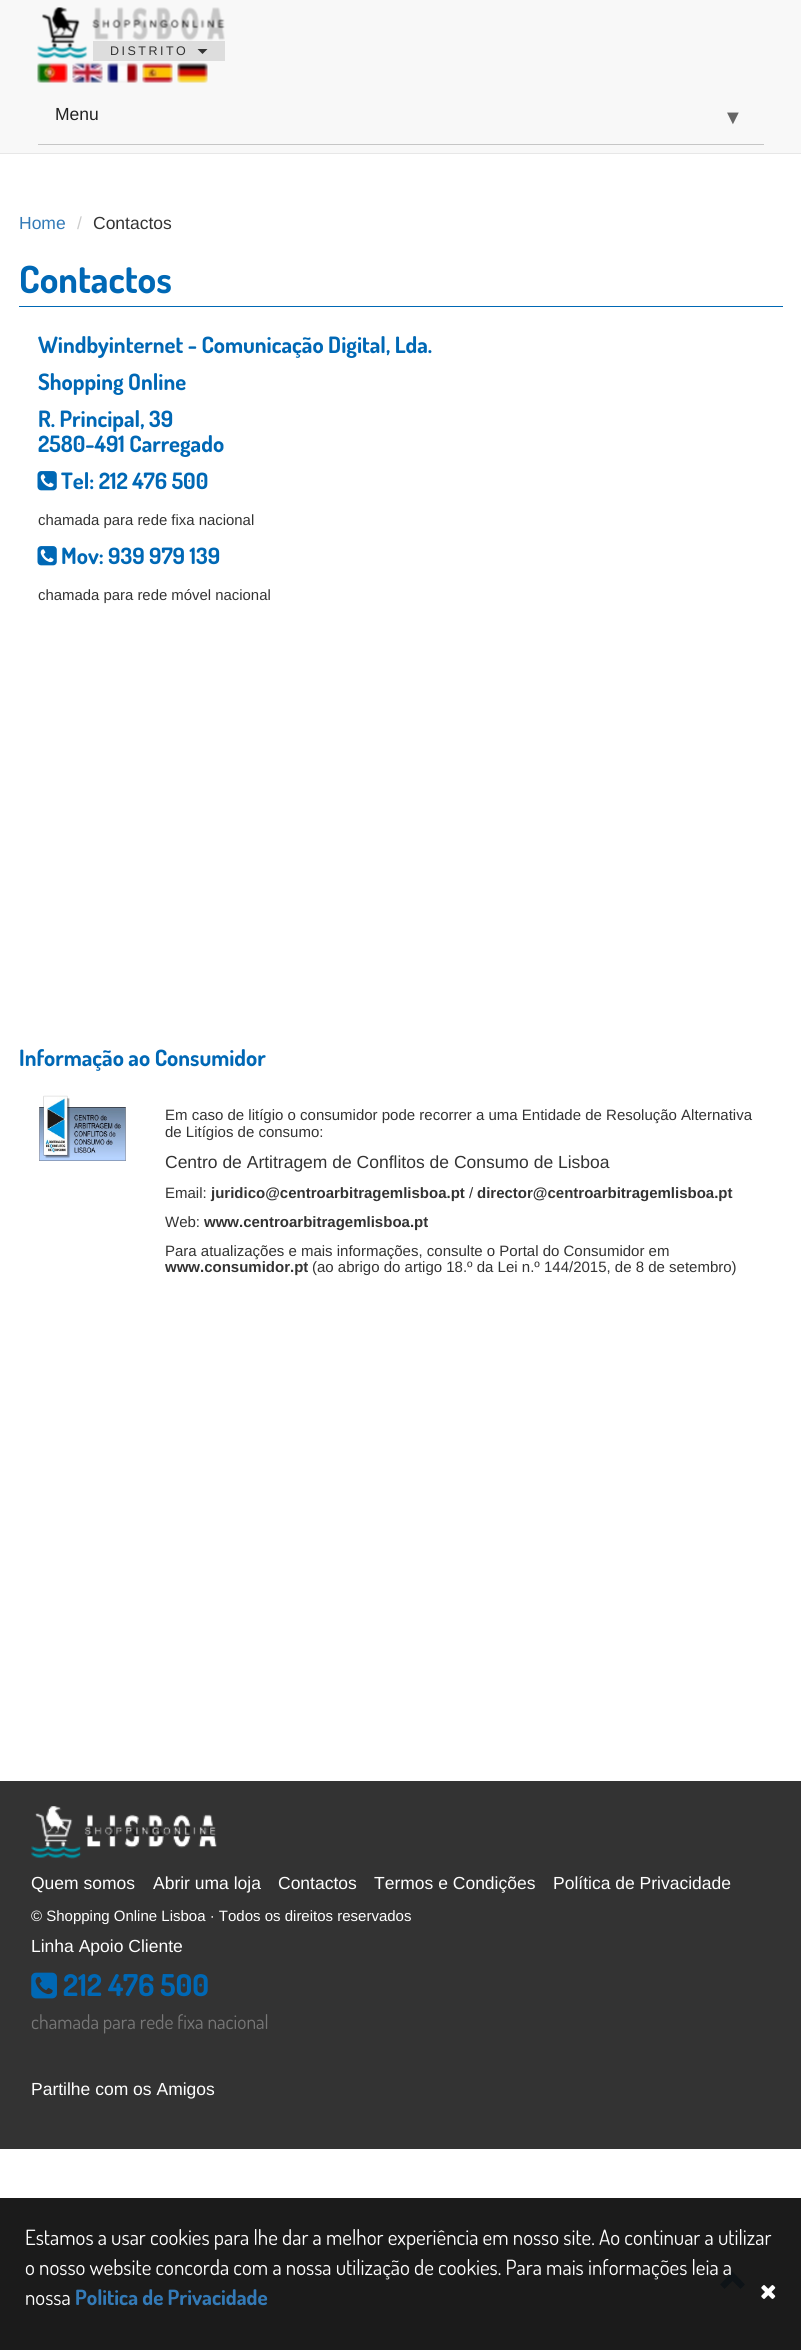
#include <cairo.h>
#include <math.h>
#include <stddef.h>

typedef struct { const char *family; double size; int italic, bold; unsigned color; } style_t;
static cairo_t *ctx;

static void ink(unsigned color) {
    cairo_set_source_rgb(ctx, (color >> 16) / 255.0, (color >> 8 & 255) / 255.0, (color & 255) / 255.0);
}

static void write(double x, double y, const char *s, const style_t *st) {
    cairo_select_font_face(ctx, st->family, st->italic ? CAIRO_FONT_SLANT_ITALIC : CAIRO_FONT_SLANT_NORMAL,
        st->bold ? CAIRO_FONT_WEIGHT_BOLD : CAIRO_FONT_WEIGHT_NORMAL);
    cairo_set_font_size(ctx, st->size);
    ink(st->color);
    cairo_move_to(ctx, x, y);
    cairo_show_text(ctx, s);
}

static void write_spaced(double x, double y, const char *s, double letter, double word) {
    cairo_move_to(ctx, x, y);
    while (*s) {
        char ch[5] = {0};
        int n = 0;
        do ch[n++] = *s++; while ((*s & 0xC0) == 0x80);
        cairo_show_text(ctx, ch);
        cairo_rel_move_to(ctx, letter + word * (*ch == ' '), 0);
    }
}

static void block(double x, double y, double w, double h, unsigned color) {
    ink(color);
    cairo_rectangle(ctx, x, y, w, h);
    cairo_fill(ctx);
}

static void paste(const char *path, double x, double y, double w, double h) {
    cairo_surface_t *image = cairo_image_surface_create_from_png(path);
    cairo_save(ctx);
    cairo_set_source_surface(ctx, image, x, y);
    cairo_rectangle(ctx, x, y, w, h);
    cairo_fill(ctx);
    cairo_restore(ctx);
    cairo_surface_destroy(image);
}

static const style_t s1 = {"Liberation Sans", 17.5, 0, 0, 0x222222};
static const style_t s2 = {"Liberation Sans", 20, 1, 0, 0x666666};
static const style_t s3 = {"Liberation Sans", 17.5, 0, 0, 0x337ab7};
static const style_t s4 = {"Liberation Sans", 17.5, 0, 0, 0xcccccc};
static const style_t s5 = {"Liberation Sans", 17.5, 0, 0, 0x333333};
static const style_t s6 = {"Dosis", 37.5, 0, 1, 0x0068b5};
static const style_t s7 = {"Dosis", 22.5, 0, 1, 0x0068b5};
static const style_t s8 = {"Liberation Sans", 14.9, 0, 0, 0x333333};
static const style_t s9 = {"Liberation Sans", 15, 0, 0, 0x333333};
static const style_t s10 = {"Liberation Sans", 15, 0, 1, 0x333333};
static const style_t s11 = {"Liberation Sans", 17.5, 0, 0, 0xffffff};
static const style_t s12 = {"Liberation Sans", 15, 0, 0, 0xffffff};
static const style_t s13 = {"Dosis", 30, 0, 1, 0x0068b5};
static const style_t s14 = {"Dosis", 19.5, 0, 0, 0x777777};
static const style_t s15 = {"Dosis", 21, 0, 0, 0xffffff};
static const style_t s16 = {"Dosis", 21, 0, 1, 0x337ab7};

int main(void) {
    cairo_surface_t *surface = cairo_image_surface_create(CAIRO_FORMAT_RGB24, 801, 2350);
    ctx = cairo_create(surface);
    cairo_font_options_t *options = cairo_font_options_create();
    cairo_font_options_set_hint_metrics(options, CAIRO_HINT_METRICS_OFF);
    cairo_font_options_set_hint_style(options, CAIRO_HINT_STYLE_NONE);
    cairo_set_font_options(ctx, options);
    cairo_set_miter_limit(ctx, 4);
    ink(0xffffff);
    cairo_paint(ctx);
    block(0, 2198, 801, 152, 0x1b1b1b);
    block(0, 0, 801, 153, 0xf8f8f8);
    block(0, 153, 801, 1, 0xe7e7e7);
    paste("pic1.png", 37, 7, 188, 53);
    block(93, 41, 132, 20, 0xdddddd);
    cairo_select_font_face(ctx, "Liberation Sans", CAIRO_FONT_SLANT_NORMAL, CAIRO_FONT_WEIGHT_NORMAL);
    cairo_set_font_size(ctx, 12.5);
    ink(0x333333);
    write_spaced(110, 55, "DISTRITO", 2.5, 0);
    cairo_new_path(ctx);
    cairo_move_to(ctx, 197.5, 49);
    cairo_line_to(ctx, 207.5, 49);
    cairo_line_to(ctx, 202.5, 54);
    cairo_close_path(ctx);
    cairo_fill(ctx);
    paste("pic2.png", 37, 62, 31, 21);
    paste("pic3.png", 72, 62, 31, 21);
    paste("pic4.png", 107, 62, 31, 21);
    paste("pic5.png", 142, 62, 31, 21);
    paste("pic6.png", 177, 62, 31, 21);
    block(38, 144, 726, 1, 0xc6c6c6);
    write(55, 120, "Menu", &s1);
    write(723, 124, "▼", &s2);
    write(19, 229, "Home", &s3);
    write(77, 229, "/", &s4);
    write(93, 229, "Contactos", &s5);
    block(19, 306, 764, 1, 0x0068b5);
    write(19, 293, "Contactos", &s6);
    write(38, 353, "Windbyinternet - Comunicação Digital, Lda.", &s7);
    write(38, 390, "Shopping Online", &s7);
    write(38, 427, "R. Principal, 39", &s7);
    write(38, 452, "2580-491 Carregado", &s7);
    paste("pic7.png", 37, 471, 20, 20);
    write(61, 489, "Tel: 212 476 500", &s7);
    write(38, 525, "chamada para rede fixa nacional", &s8);
    paste("pic7.png", 37, 546, 20, 20);
    write(61, 564, "Mov: 939 979 139", &s7);
    write(38, 600, "chamada para rede móvel nacional", &s8);
    write(19, 1066, "Informação ao Consumidor", &s7);
    paste("pic8.png", 39, 1095, 87, 66);
    write(165, 1120, "Em caso de litígio o consumidor pode recorrer a uma Entidade de Resolução Alternativa", &s9);
    write(165, 1137, "de Litígios de consumo:", &s9);
    write(165, 1168, "Centro de Artitragem de Conflitos de Consumo de Lisboa", &s5);
    write(165, 1198, "Email:", &s9);
    write(211, 1198, "juridico@centroarbitragemlisboa.pt", &s10);
    write(469, 1198, "/", &s9);
    write(477, 1198, "director@centroarbitragemlisboa.pt", &s10);
    write(165, 1227, "Web:", &s9);
    write(204, 1227, "www.centroarbitragemlisboa.pt", &s10);
    write(165, 1256, "Para atualizações e mais informações, consulte o Portal do Consumidor em", &s9);
    write(165, 1272, "www.consumidor.pt", &s10);
    write(312, 1272, "(ao abrigo do artigo 18.º da Lei n.º 144/2015, de 8 de setembro)", &s9);
    block(0, 1781, 801, 368, 0x333333);
    paste("pic9.png", 31, 1806, 186, 53);
    write(31, 1889, "Quem somos", &s11);
    write(153, 1889, "Abrir uma loja", &s11);
    write(278, 1889, "Contactos", &s11);
    write(374, 1889, "Termos e Condições", &s11);
    write(553, 1889, "Política de Privacidade", &s11);
    write(31, 1921, "© Shopping Online Lisboa · Todos os direitos reservados", &s12);
    write(31, 1952, "Linha Apoio Cliente", &s11);
    paste("pic10.png", 31, 1972, 26, 27);
    write(63, 1996, "212 476 500", &s13);
    write(31, 2029, "chamada para rede fixa nacional", &s14);
    write(31, 2095, "Partilhe com os Amigos", &s11);
    write(25, 2245, "Estamos a usar cookies para lhe dar a melhor experiência em nosso site. Ao continuar a utilizar", &s15);
    ink(0x0e1317);
    cairo_new_path(ctx);
    cairo_move_to(ctx, 745, 2284.5);
    cairo_line_to(ctx, 740.5, 2289);
    cairo_line_to(ctx, 732.5, 2281);
    cairo_line_to(ctx, 724.5, 2289);
    cairo_line_to(ctx, 720, 2284.5);
    cairo_line_to(ctx, 732.5, 2271.5);
    cairo_close_path(ctx);
    cairo_fill(ctx);
    write(25, 2275, "o nosso website concorda com a nossa utilização de cookies. Para mais informações leia a", &s15);
    write(25, 2305, "nossa", &s15);
    write(75, 2305, "Politica de Privacidade", &s16);
    paste("pic11.png", 761, 2285, 15, 14);
    cairo_surface_write_to_png(surface, "screenshot.png");
    cairo_font_options_destroy(options);
    cairo_destroy(ctx);
    cairo_surface_destroy(surface);
    return 0;
}
